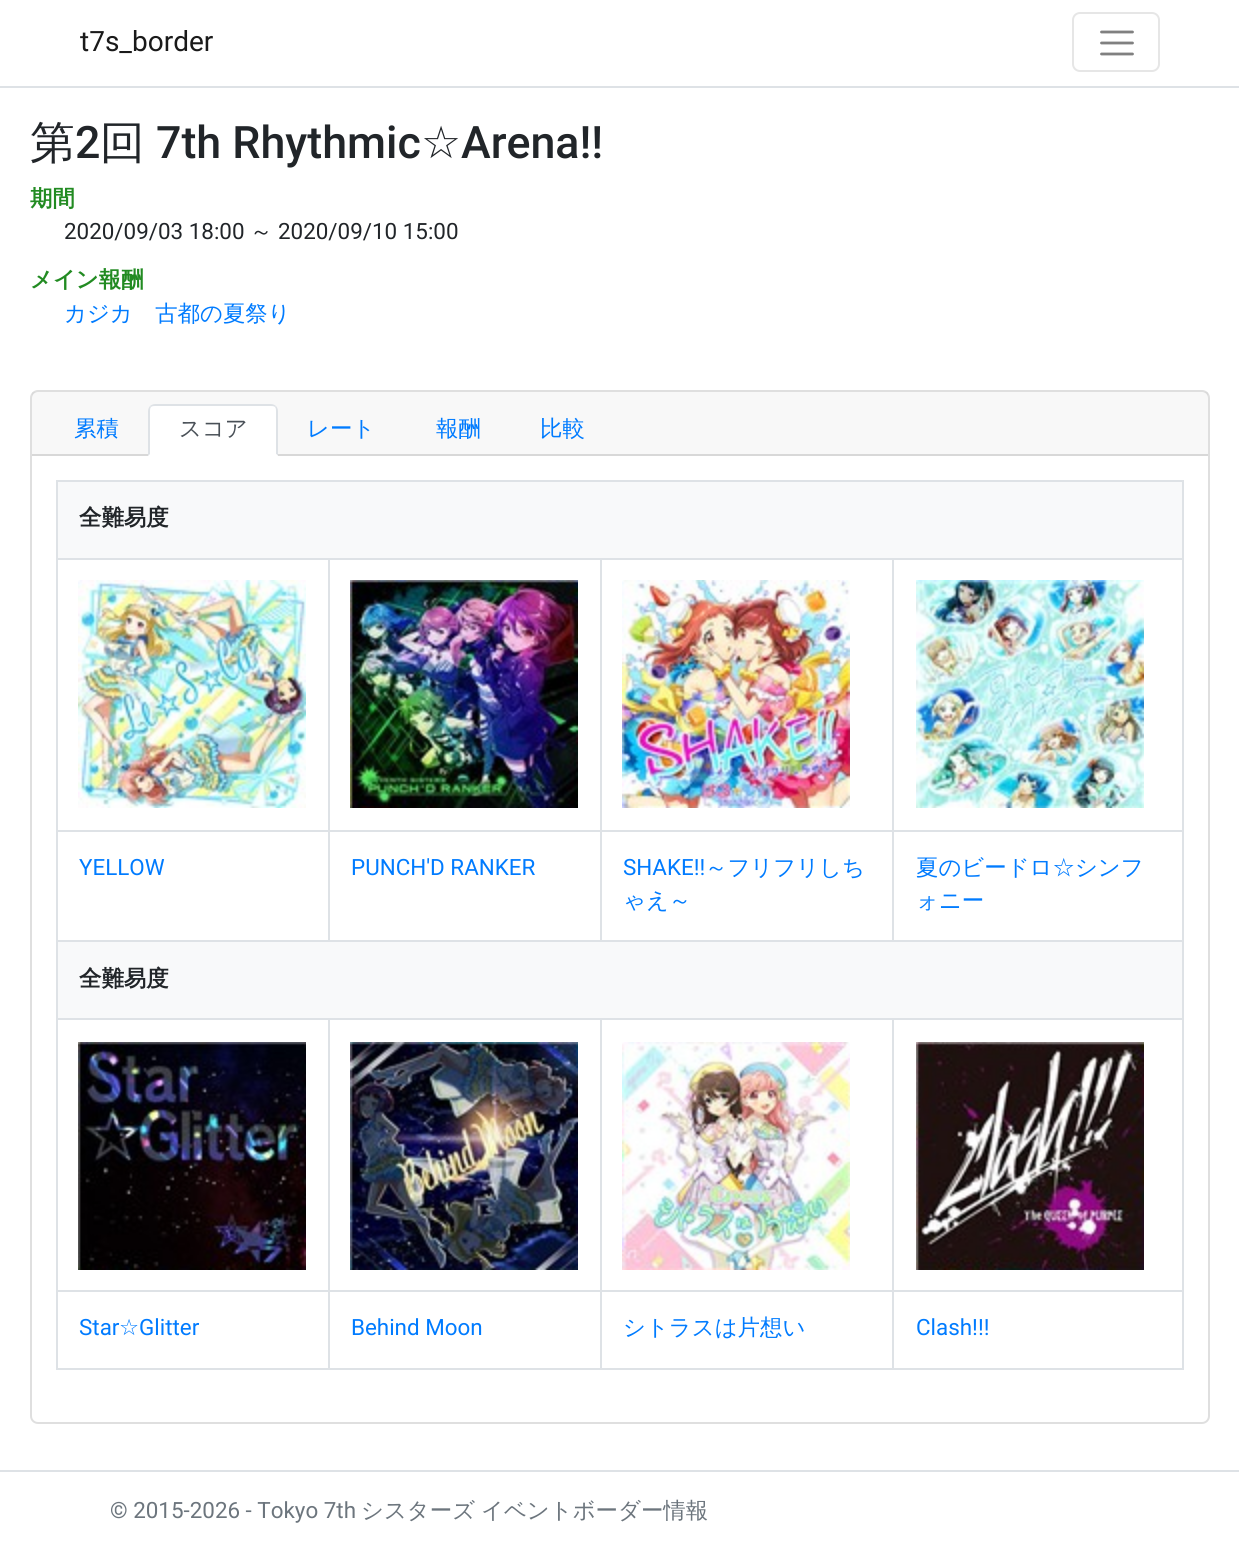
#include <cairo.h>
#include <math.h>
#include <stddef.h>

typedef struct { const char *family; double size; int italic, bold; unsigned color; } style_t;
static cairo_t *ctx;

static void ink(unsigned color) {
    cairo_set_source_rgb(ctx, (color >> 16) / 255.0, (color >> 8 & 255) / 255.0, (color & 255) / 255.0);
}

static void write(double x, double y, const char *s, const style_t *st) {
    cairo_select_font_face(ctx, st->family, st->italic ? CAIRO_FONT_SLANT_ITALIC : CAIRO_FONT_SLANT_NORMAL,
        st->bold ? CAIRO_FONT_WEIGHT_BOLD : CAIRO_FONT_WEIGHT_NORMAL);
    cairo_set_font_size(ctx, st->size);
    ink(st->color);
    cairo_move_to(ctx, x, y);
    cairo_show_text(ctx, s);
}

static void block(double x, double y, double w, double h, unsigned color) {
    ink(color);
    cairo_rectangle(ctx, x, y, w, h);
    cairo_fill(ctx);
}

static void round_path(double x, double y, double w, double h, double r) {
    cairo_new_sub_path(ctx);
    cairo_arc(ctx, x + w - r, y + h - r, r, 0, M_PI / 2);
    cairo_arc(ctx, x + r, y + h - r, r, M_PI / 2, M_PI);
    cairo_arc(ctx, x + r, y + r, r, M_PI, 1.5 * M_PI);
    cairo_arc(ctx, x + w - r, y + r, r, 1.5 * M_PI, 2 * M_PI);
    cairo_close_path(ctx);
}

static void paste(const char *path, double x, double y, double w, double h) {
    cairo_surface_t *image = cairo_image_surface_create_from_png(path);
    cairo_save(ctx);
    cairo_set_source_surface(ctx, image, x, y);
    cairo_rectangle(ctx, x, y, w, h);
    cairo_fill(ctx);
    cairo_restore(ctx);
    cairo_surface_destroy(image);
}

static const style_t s1 = {"Roboto", 28, 0, 0, 0x1a1a1a};
static const style_t s2 = {"WenQuanYi Zen Hei Medium", 44.75, 0, 0, 0x212529};
static const style_t s3 = {"Roboto Medium", 44.75, 0, 0, 0x212529};
static const style_t s4 = {"DejaVu Sans", 44.75, 0, 0, 0x212529};
static const style_t s5 = {"WenQuanYi Zen Hei", 22.4, 0, 1, 0x228b22};
static const style_t s6 = {"Roboto", 22.4, 0, 0, 0x212529};
static const style_t s7 = {"WenQuanYi Zen Hei Medium", 22.4, 0, 0, 0x212529};
static const style_t s8 = {"WenQuanYi Zen Hei Medium", 22.4, 0, 0, 0x007bff};
static const style_t s9 = {"WenQuanYi Zen Hei Medium", 22.4, 0, 0, 0x495057};
static const style_t s10 = {"WenQuanYi Zen Hei", 22.4, 0, 1, 0x212529};
static const style_t s11 = {"Roboto", 22.4, 0, 0, 0x007bff};
static const style_t s12 = {"DejaVu Sans", 22.4, 0, 0, 0x007bff};
static const style_t s13 = {"Roboto", 22.4, 0, 0, 0x6c757d};
static const style_t s14 = {"WenQuanYi Zen Hei Medium", 22.4, 0, 0, 0x6c757d};

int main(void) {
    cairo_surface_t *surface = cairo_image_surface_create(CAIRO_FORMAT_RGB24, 1239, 1551);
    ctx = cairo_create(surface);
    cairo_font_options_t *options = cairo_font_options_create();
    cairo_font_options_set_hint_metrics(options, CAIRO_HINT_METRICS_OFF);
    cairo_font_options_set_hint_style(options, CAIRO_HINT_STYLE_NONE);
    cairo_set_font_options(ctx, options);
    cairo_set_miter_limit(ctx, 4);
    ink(0xffffff);
    cairo_paint(ctx);
    block(0, 86, 1239, 2, 0xdee2e6);
    write(80, 51, "t7s_border", &s1);
    round_path(1073, 13, 86, 58, 7);
    ink(0xe6e6e6);
    cairo_stroke(ctx);
    cairo_new_path(ctx);
    cairo_move_to(ctx, 1101.5, 32);
    cairo_line_to(ctx, 1132.5, 32);
    cairo_move_to(ctx, 1101.5, 43);
    cairo_line_to(ctx, 1132.5, 43);
    cairo_move_to(ctx, 1101.5, 54);
    cairo_line_to(ctx, 1132.5, 54);
    ink(0x808080);
    cairo_set_line_width(ctx, 2.8);
    cairo_set_line_cap(ctx, CAIRO_LINE_CAP_ROUND);
    cairo_stroke(ctx);
    write(30, 158, "第", &s2);
    write(75, 158, "2", &s3);
    write(100, 158, "回", &s2);
    write(156, 158, "7th Rhythmic", &s3);
    write(421, 158, "☆", &s4);
    write(461, 158, "Arena!!", &s3);
    write(30, 206, "期間", &s5);
    write(64, 239, "2020/09/03 18:00", &s6);
    write(250, 239, "～", &s7);
    write(278, 239, "2020/09/10 15:00", &s6);
    write(30, 287, "メイン報酬", &s5);
    write(64, 321, "カジカ　古都の夏祭り", &s8);
    round_path(31, 391, 1178, 1032, 7);
    ink(0xdfdfdf);
    cairo_set_line_width(ctx, 2);
    cairo_set_line_cap(ctx, CAIRO_LINE_CAP_BUTT);
    cairo_stroke(ctx);
    cairo_set_source_rgba(ctx, 0, 0, 0, 0.03);
    cairo_rectangle(ctx, 32, 392, 1176, 62);
    cairo_fill(ctx);
    block(32, 454, 1176, 2, 0xd8d8d8);
    write(74, 436, "累積", &s8);
    ink(0xffffff);
    cairo_new_path(ctx);
    cairo_move_to(ctx, 156, 404);
    cairo_line_to(ctx, 270, 404);
    cairo_curve_to(ctx, 274.5, 404, 278, 407.5, 278, 412);
    cairo_line_to(ctx, 278, 456);
    cairo_line_to(ctx, 148, 456);
    cairo_line_to(ctx, 148, 412);
    cairo_curve_to(ctx, 148, 407.5, 151.5, 404, 156, 404);
    cairo_close_path(ctx);
    cairo_fill(ctx);
    ink(0xdee2e6);
    cairo_new_path(ctx);
    cairo_move_to(ctx, 155, 404);
    cairo_curve_to(ctx, 153, 404, 151, 405, 150, 406);
    cairo_line_to(ctx, 151, 407);
    cairo_curve_to(ctx, 152, 406, 154, 406, 155, 406);
    cairo_line_to(ctx, 271, 406);
    cairo_curve_to(ctx, 272, 406, 274, 406, 275, 407);
    cairo_line_to(ctx, 276, 406);
    cairo_curve_to(ctx, 275, 405, 273, 404, 271, 404);
    cairo_close_path(ctx);
    cairo_fill(ctx);
    cairo_new_path(ctx);
    cairo_move_to(ctx, 278, 456);
    cairo_line_to(ctx, 278, 411);
    cairo_curve_to(ctx, 278, 409, 277, 407, 276, 406);
    cairo_line_to(ctx, 275, 407);
    cairo_curve_to(ctx, 276, 408, 276, 410, 276, 411);
    cairo_line_to(ctx, 276, 454);
    cairo_close_path(ctx);
    cairo_fill(ctx);
    ink(0xffffff);
    cairo_new_path(ctx);
    cairo_move_to(ctx, 278, 456);
    cairo_line_to(ctx, 276, 454);
    cairo_line_to(ctx, 150, 454);
    cairo_line_to(ctx, 148, 456);
    cairo_close_path(ctx);
    cairo_fill(ctx);
    ink(0xdee2e6);
    cairo_new_path(ctx);
    cairo_move_to(ctx, 148, 456);
    cairo_line_to(ctx, 150, 454);
    cairo_line_to(ctx, 150, 411);
    cairo_curve_to(ctx, 150, 410, 150, 408, 151, 407);
    cairo_line_to(ctx, 150, 406);
    cairo_curve_to(ctx, 149, 407, 148, 409, 148, 411);
    cairo_close_path(ctx);
    cairo_fill(ctx);
    write(179, 436, "スコア", &s9);
    write(307, 436, "レート", &s8);
    write(436, 436, "報酬", &s8);
    write(540, 436, "比較", &s8);
    block(56, 480, 1128, 2, 0xdee2e6);
    block(1182, 480, 2, 890, 0xdee2e6);
    block(56, 1368, 1128, 2, 0xdee2e6);
    block(56, 480, 2, 890, 0xdee2e6);
    block(58, 482, 1124, 76, 0xf8f9fa);
    write(79, 525, "全難易度", &s10);
    block(892, 558, 292, 2, 0xdee2e6);
    block(892, 830, 292, 2, 0xdee2e6);
    block(56, 940, 1128, 2, 0xdee2e6);
    block(892, 830, 2, 112, 0xdee2e6);
    block(600, 830, 294, 2, 0xdee2e6);
    block(892, 558, 2, 274, 0xdee2e6);
    block(600, 558, 294, 2, 0xdee2e6);
    block(600, 830, 2, 112, 0xdee2e6);
    block(328, 830, 274, 2, 0xdee2e6);
    block(600, 558, 2, 274, 0xdee2e6);
    block(328, 558, 274, 2, 0xdee2e6);
    block(328, 830, 2, 112, 0xdee2e6);
    block(56, 830, 274, 2, 0xdee2e6);
    block(328, 558, 2, 274, 0xdee2e6);
    block(56, 558, 274, 2, 0xdee2e6);
    paste("pic1.png", 78, 580, 228, 228);
    paste("pic2.png", 350, 580, 228, 228);
    paste("pic3.png", 622, 580, 228, 228);
    paste("pic4.png", 916, 580, 228, 228);
    write(79, 875, "YELLOW", &s11);
    write(351, 875, "PUNCH'D RANKER", &s11);
    write(623, 875, "SHAKE!!", &s11);
    write(705, 875, "～フリフリしち", &s8);
    write(623, 908, "ゃえ～", &s8);
    write(916, 875, "夏のビードロ☆シンフ", &s8);
    write(916, 908, "ォニー", &s8);
    block(58, 942, 1124, 76, 0xf8f9fa);
    write(79, 986, "全難易度", &s10);
    block(892, 1018, 292, 2, 0xdee2e6);
    block(892, 1290, 292, 2, 0xdee2e6);
    block(892, 1290, 2, 80, 0xdee2e6);
    block(600, 1290, 294, 2, 0xdee2e6);
    block(892, 1018, 2, 274, 0xdee2e6);
    block(600, 1018, 294, 2, 0xdee2e6);
    block(600, 1290, 2, 80, 0xdee2e6);
    block(328, 1290, 274, 2, 0xdee2e6);
    block(600, 1018, 2, 274, 0xdee2e6);
    block(328, 1018, 274, 2, 0xdee2e6);
    block(328, 1290, 2, 80, 0xdee2e6);
    block(56, 1290, 274, 2, 0xdee2e6);
    block(328, 1018, 2, 274, 0xdee2e6);
    block(56, 1018, 274, 2, 0xdee2e6);
    paste("pic5.png", 78, 1042, 228, 228);
    paste("pic6.png", 350, 1042, 228, 228);
    paste("pic7.png", 622, 1042, 228, 228);
    paste("pic8.png", 916, 1042, 228, 228);
    write(79, 1335, "Star", &s11);
    write(119, 1335, "☆", &s12);
    write(139, 1335, "Glitter", &s11);
    write(351, 1335, "Behind Moon", &s11);
    write(623, 1335, "シトラスは片想い", &s8);
    write(916, 1335, "Clash!!!", &s11);
    block(0, 1470, 1239, 2, 0xdee2e6);
    write(110, 1518, "© 2015-2026 - Tokyo 7th", &s13);
    write(361, 1518, "シスターズ", &s14);
    write(481, 1518, "イベントボーダー情報", &s14);
    cairo_surface_write_to_png(surface, "screenshot.png");
    cairo_font_options_destroy(options);
    cairo_destroy(ctx);
    cairo_surface_destroy(surface);
    return 0;
}
